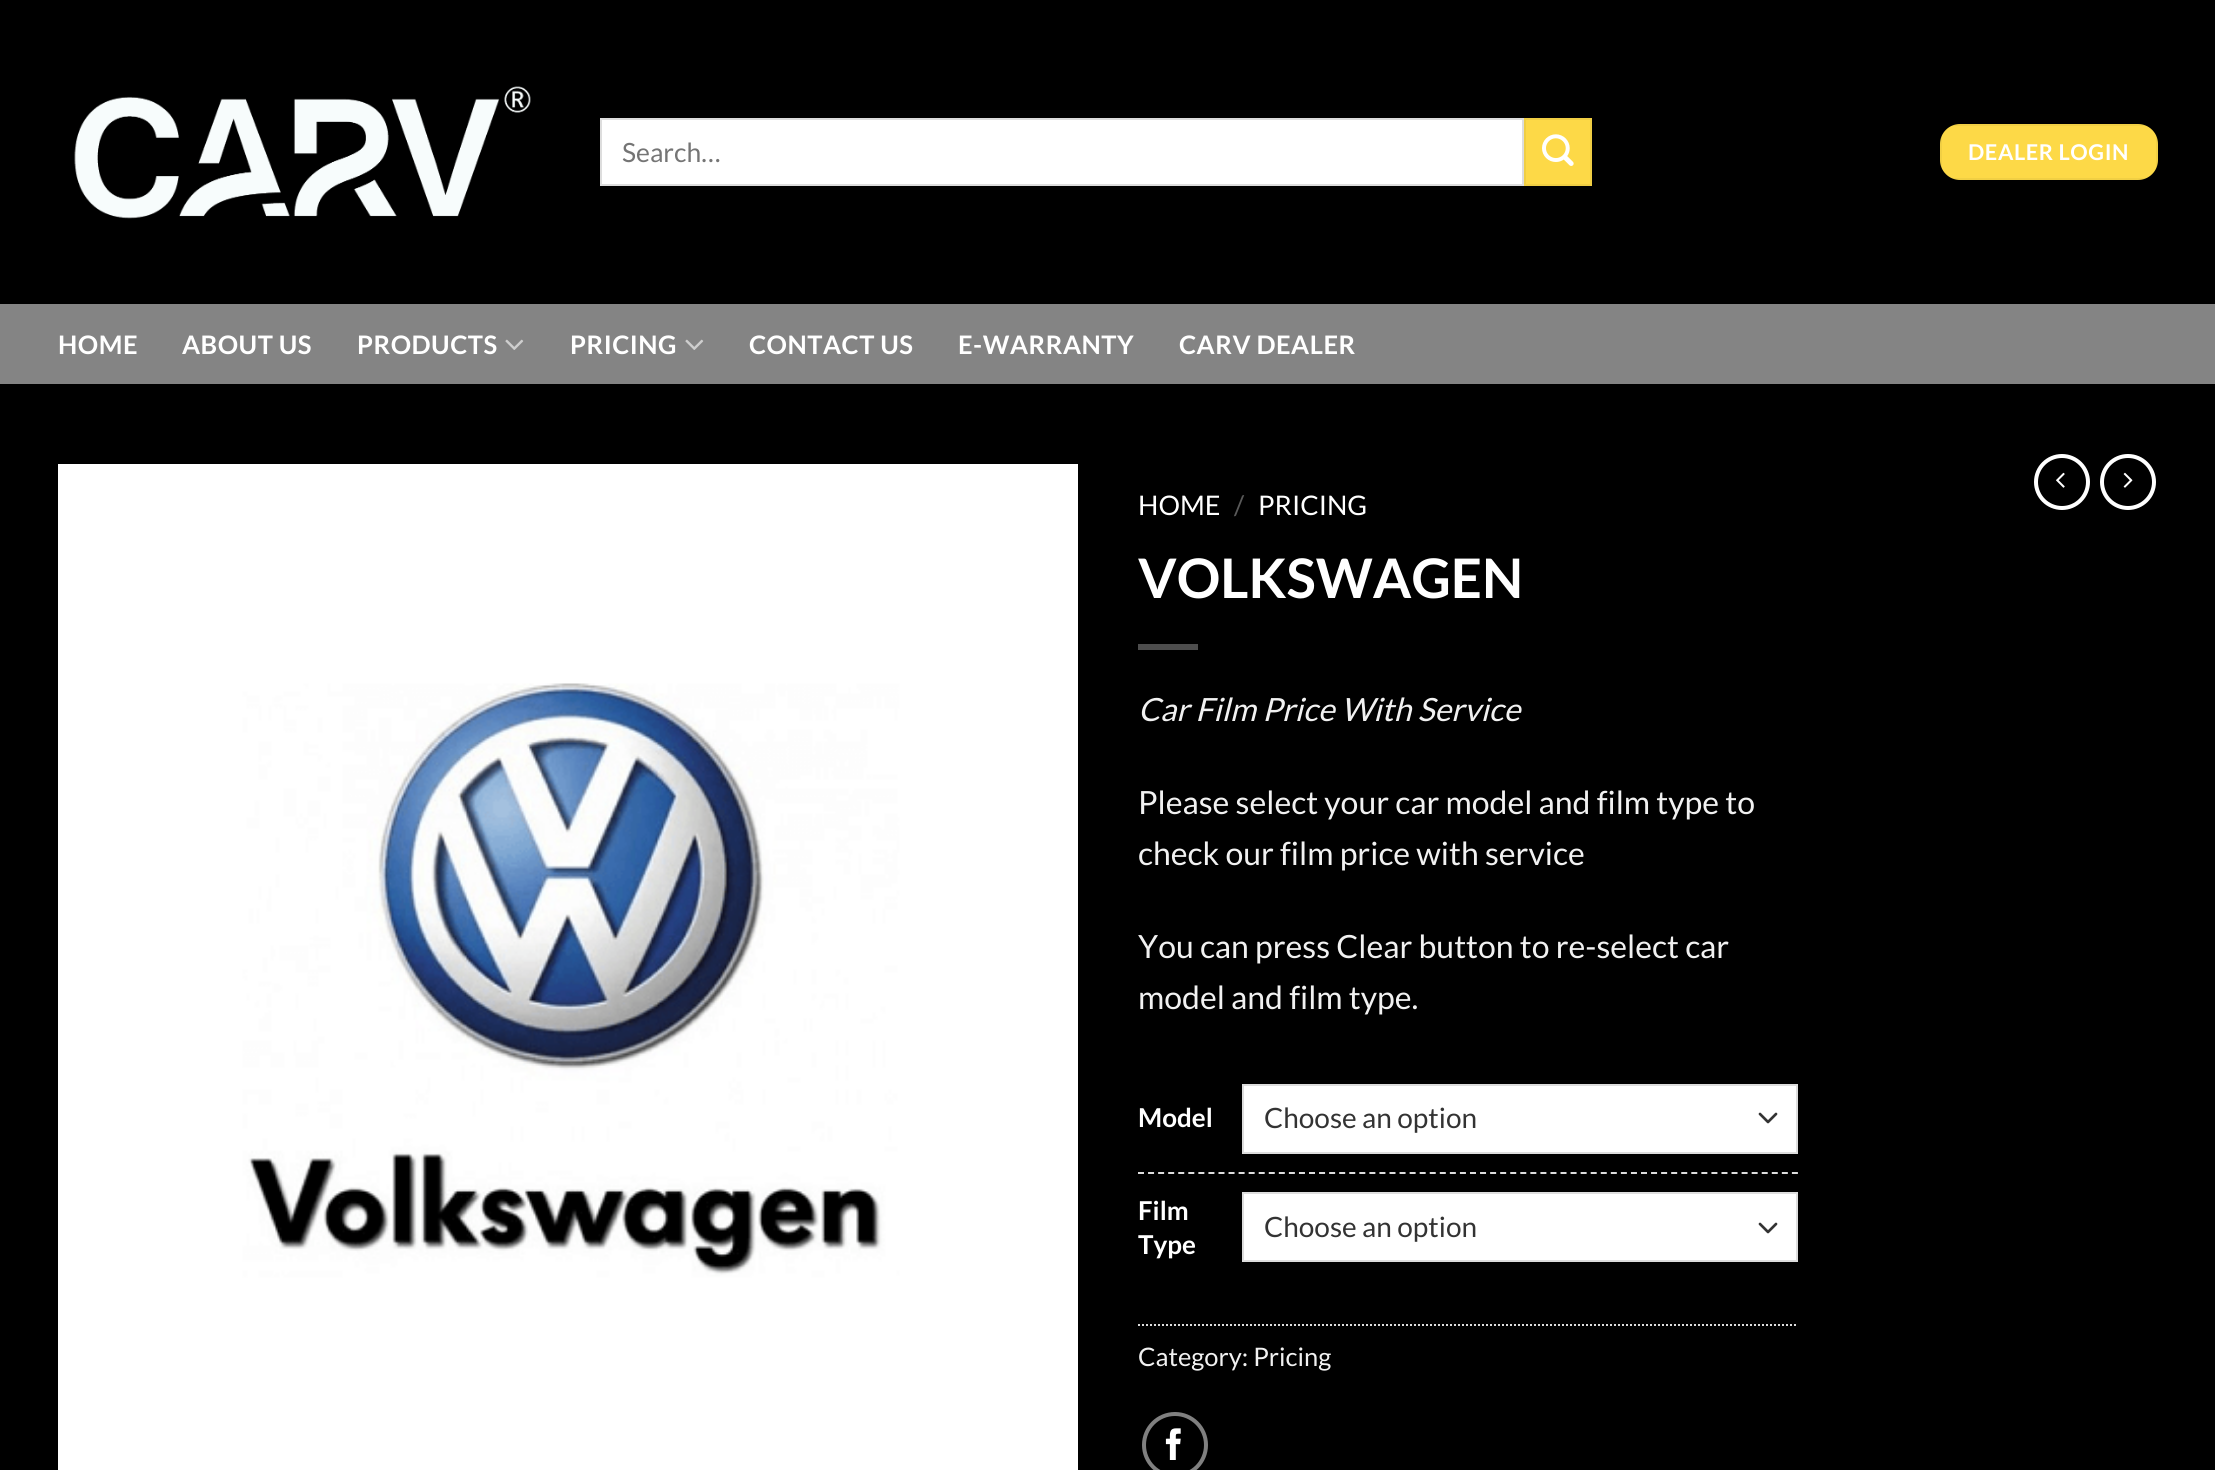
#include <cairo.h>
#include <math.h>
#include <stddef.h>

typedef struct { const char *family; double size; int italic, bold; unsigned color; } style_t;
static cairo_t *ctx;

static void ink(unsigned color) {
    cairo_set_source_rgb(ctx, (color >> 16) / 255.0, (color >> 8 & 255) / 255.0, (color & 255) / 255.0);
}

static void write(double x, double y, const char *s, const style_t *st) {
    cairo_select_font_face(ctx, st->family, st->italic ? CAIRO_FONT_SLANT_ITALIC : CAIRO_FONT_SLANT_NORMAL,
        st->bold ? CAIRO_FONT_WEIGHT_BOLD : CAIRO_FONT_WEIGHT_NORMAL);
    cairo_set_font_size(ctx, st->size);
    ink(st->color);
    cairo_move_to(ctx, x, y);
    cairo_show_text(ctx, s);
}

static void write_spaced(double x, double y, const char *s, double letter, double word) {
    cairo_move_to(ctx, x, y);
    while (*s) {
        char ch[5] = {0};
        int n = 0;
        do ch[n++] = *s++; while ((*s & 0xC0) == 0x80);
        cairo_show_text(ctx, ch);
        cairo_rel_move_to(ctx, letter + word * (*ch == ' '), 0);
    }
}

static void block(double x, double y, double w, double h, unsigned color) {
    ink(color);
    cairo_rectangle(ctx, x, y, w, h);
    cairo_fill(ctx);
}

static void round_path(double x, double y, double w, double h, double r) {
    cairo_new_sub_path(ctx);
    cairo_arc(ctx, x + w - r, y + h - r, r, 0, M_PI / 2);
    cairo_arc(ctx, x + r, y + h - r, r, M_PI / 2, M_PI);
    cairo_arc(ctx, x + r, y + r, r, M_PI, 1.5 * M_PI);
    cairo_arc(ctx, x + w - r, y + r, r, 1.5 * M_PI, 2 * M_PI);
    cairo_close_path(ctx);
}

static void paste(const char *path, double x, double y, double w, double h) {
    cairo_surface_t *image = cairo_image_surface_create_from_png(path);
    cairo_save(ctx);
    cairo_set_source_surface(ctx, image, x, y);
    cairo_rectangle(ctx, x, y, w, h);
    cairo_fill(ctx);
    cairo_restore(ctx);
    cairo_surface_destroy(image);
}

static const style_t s1 = {"Lato", 26.5, 0, 0, 0x757575};
static const style_t s2 = {"Lato", 27, 0, 0, 0xffffff};
static const style_t s3 = {"Lato", 27, 0, 0, 0x595959};
static const style_t s4 = {"Lato", 54.5, 0, 1, 0xffffff};
static const style_t s5 = {"Lato", 32, 1, 0, 0xf1f1f1};
static const style_t s6 = {"Lato", 32, 0, 0, 0xf1f1f1};
static const style_t s7 = {"Lato", 26, 0, 1, 0xffffff};
static const style_t s8 = {"Lato", 28, 0, 0, 0x333333};
static const style_t s9 = {"Lato", 25.5, 0, 0, 0xf1f1f1};

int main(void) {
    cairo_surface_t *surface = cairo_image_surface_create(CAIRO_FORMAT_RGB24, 2215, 1470);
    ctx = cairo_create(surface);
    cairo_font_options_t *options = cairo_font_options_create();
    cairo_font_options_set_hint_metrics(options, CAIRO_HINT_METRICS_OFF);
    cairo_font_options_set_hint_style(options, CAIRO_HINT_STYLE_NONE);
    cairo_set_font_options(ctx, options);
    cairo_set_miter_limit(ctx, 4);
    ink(0x000000);
    cairo_paint(ctx);
    paste("pic1.png", 74, 86, 457, 133);
    ink(0xffffff);
    cairo_rectangle(ctx, 601, 119, 922, 66);
    cairo_fill_preserve(ctx);
    ink(0xdddddd);
    cairo_stroke(ctx);
    write(622, 162, "Search…", &s1);
    ink(0xfdd947);
    cairo_rectangle(ctx, 1525, 119, 66, 66);
    cairo_fill_preserve(ctx);
    ink(0xf0ce43);
    cairo_stroke(ctx);
    paste("pic2.png", 1542, 134, 32, 32);
    ink(0xfdd947);
    round_path(1940, 124, 218, 56, 20);
    cairo_fill(ctx);
    cairo_rectangle(ctx, 1941, 125, 216, 54);
    cairo_set_source_rgba(ctx, 0, 0, 0, 0.05);
    cairo_stroke(ctx);
    cairo_select_font_face(ctx, "Lato", CAIRO_FONT_SLANT_NORMAL, CAIRO_FONT_WEIGHT_BOLD);
    cairo_set_font_size(ctx, 21.75);
    ink(0xffffff);
    write_spaced(1968, 160, "DEALER LOGIN", 0.6, 0);
    block(0, 304, 2215, 80, 0x848484);
    cairo_set_font_size(ctx, 25.5);
    ink(0xffffff);
    write_spaced(58, 354, "HOME", 0.5, 0);
    write_spaced(182, 354, "ABOUT US", 0.5, 0);
    write_spaced(357, 354, "PRODUCTS", 0.5, 0);
    paste("pic3.png", 505, 339, 19, 11);
    write_spaced(570, 354, "PRICING", 0.5, 0);
    paste("pic3.png", 685, 339, 19, 11);
    write_spaced(749, 354, "CONTACT US", 0.5, 0);
    write_spaced(958, 354, "E-WARRANTY", 0.5, 0);
    write_spaced(1179, 354, "CARV DEALER", 0.5, 0);
    paste("pic4.png", 58, 464, 1020, 1006);
    write(1138, 515, "HOME", &s2);
    write(1234, 515, "/", &s3);
    write(1258, 515, "PRICING", &s2);
    write(1138, 598, "VOLKSWAGEN", &s4);
    block(1138, 644, 60, 6, 0x4d4d4d);
    write(1138, 721, "Car Film Price With Service", &s5);
    write(1138, 814, "Please select your car model and film type to", &s6);
    write(1138, 865, "check our film price with service", &s6);
    write(1138, 958, "You can press Clear button to re-select car", &s6);
    write(1138, 1009, "model and film type.", &s6);
    write(1138, 1127, "Model", &s7);
    block(1244, 1086, 552, 66, 0xffffff);
    cairo_new_path(ctx);
    cairo_move_to(ctx, 1760, 1114);
    cairo_line_to(ctx, 1768, 1122);
    cairo_line_to(ctx, 1776, 1114);
    ink(0x333333);
    cairo_set_line_width(ctx, 2.7);
    cairo_set_line_cap(ctx, CAIRO_LINE_CAP_ROUND);
    cairo_set_line_join(ctx, CAIRO_LINE_JOIN_ROUND);
    cairo_stroke(ctx);
    cairo_rectangle(ctx, 1243, 1085, 554, 68);
    ink(0xdddddd);
    cairo_set_line_width(ctx, 2);
    cairo_set_line_cap(ctx, CAIRO_LINE_CAP_BUTT);
    cairo_set_line_join(ctx, CAIRO_LINE_JOIN_MITER);
    cairo_stroke(ctx);
    write(1264, 1128, "Choose an option", &s8);
    cairo_new_path(ctx);
    cairo_move_to(ctx, 1138, 1173);
    cairo_line_to(ctx, 1798, 1173);
    ink(0xdddddd);
    cairo_set_dash(ctx, (double[]){6, 4.06}, 2, 0);
    cairo_stroke(ctx);
    write(1138, 1220, "Film", &s7);
    write(1138, 1254, "Type", &s7);
    block(1244, 1194, 552, 66, 0xffffff);
    cairo_new_path(ctx);
    cairo_move_to(ctx, 1760, 1224);
    cairo_line_to(ctx, 1768, 1232);
    cairo_line_to(ctx, 1776, 1224);
    ink(0x333333);
    cairo_set_line_width(ctx, 2.7);
    cairo_set_line_cap(ctx, CAIRO_LINE_CAP_ROUND);
    cairo_set_line_join(ctx, CAIRO_LINE_JOIN_ROUND);
    cairo_set_dash(ctx, NULL, 0, 0);
    cairo_stroke(ctx);
    cairo_rectangle(ctx, 1243, 1193, 554, 68);
    ink(0xdddddd);
    cairo_set_line_width(ctx, 2);
    cairo_set_line_cap(ctx, CAIRO_LINE_CAP_BUTT);
    cairo_set_line_join(ctx, CAIRO_LINE_JOIN_MITER);
    cairo_stroke(ctx);
    write(1264, 1237, "Choose an option", &s8);
    cairo_new_path(ctx);
    cairo_move_to(ctx, 1138, 1325);
    cairo_line_to(ctx, 1798, 1325);
    ink(0xdddddd);
    cairo_set_dash(ctx, (double[]){2, 2}, 2, 0);
    cairo_stroke(ctx);
    write(1138, 1366, "Category: Pricing", &s9);
    cairo_new_path(ctx);
    cairo_arc(ctx, 1175, 1445, 31, 0, 2 * M_PI);
    ink(0x808080);
    cairo_set_line_width(ctx, 4);
    cairo_set_dash(ctx, NULL, 0, 0);
    cairo_stroke(ctx);
    paste("pic5.png", 1165, 1428, 16, 32);
    cairo_arc(ctx, 2062, 482, 26, 0, 2 * M_PI);
    ink(0xffffff);
    cairo_stroke(ctx);
    paste("pic6.png", 2056, 472, 9, 16);
    cairo_arc(ctx, 2128, 482, 26, 0, 2 * M_PI);
    cairo_stroke(ctx);
    paste("pic7.png", 2123, 472, 10, 16);
    cairo_surface_write_to_png(surface, "screenshot.png");
    cairo_font_options_destroy(options);
    cairo_destroy(ctx);
    cairo_surface_destroy(surface);
    return 0;
}
